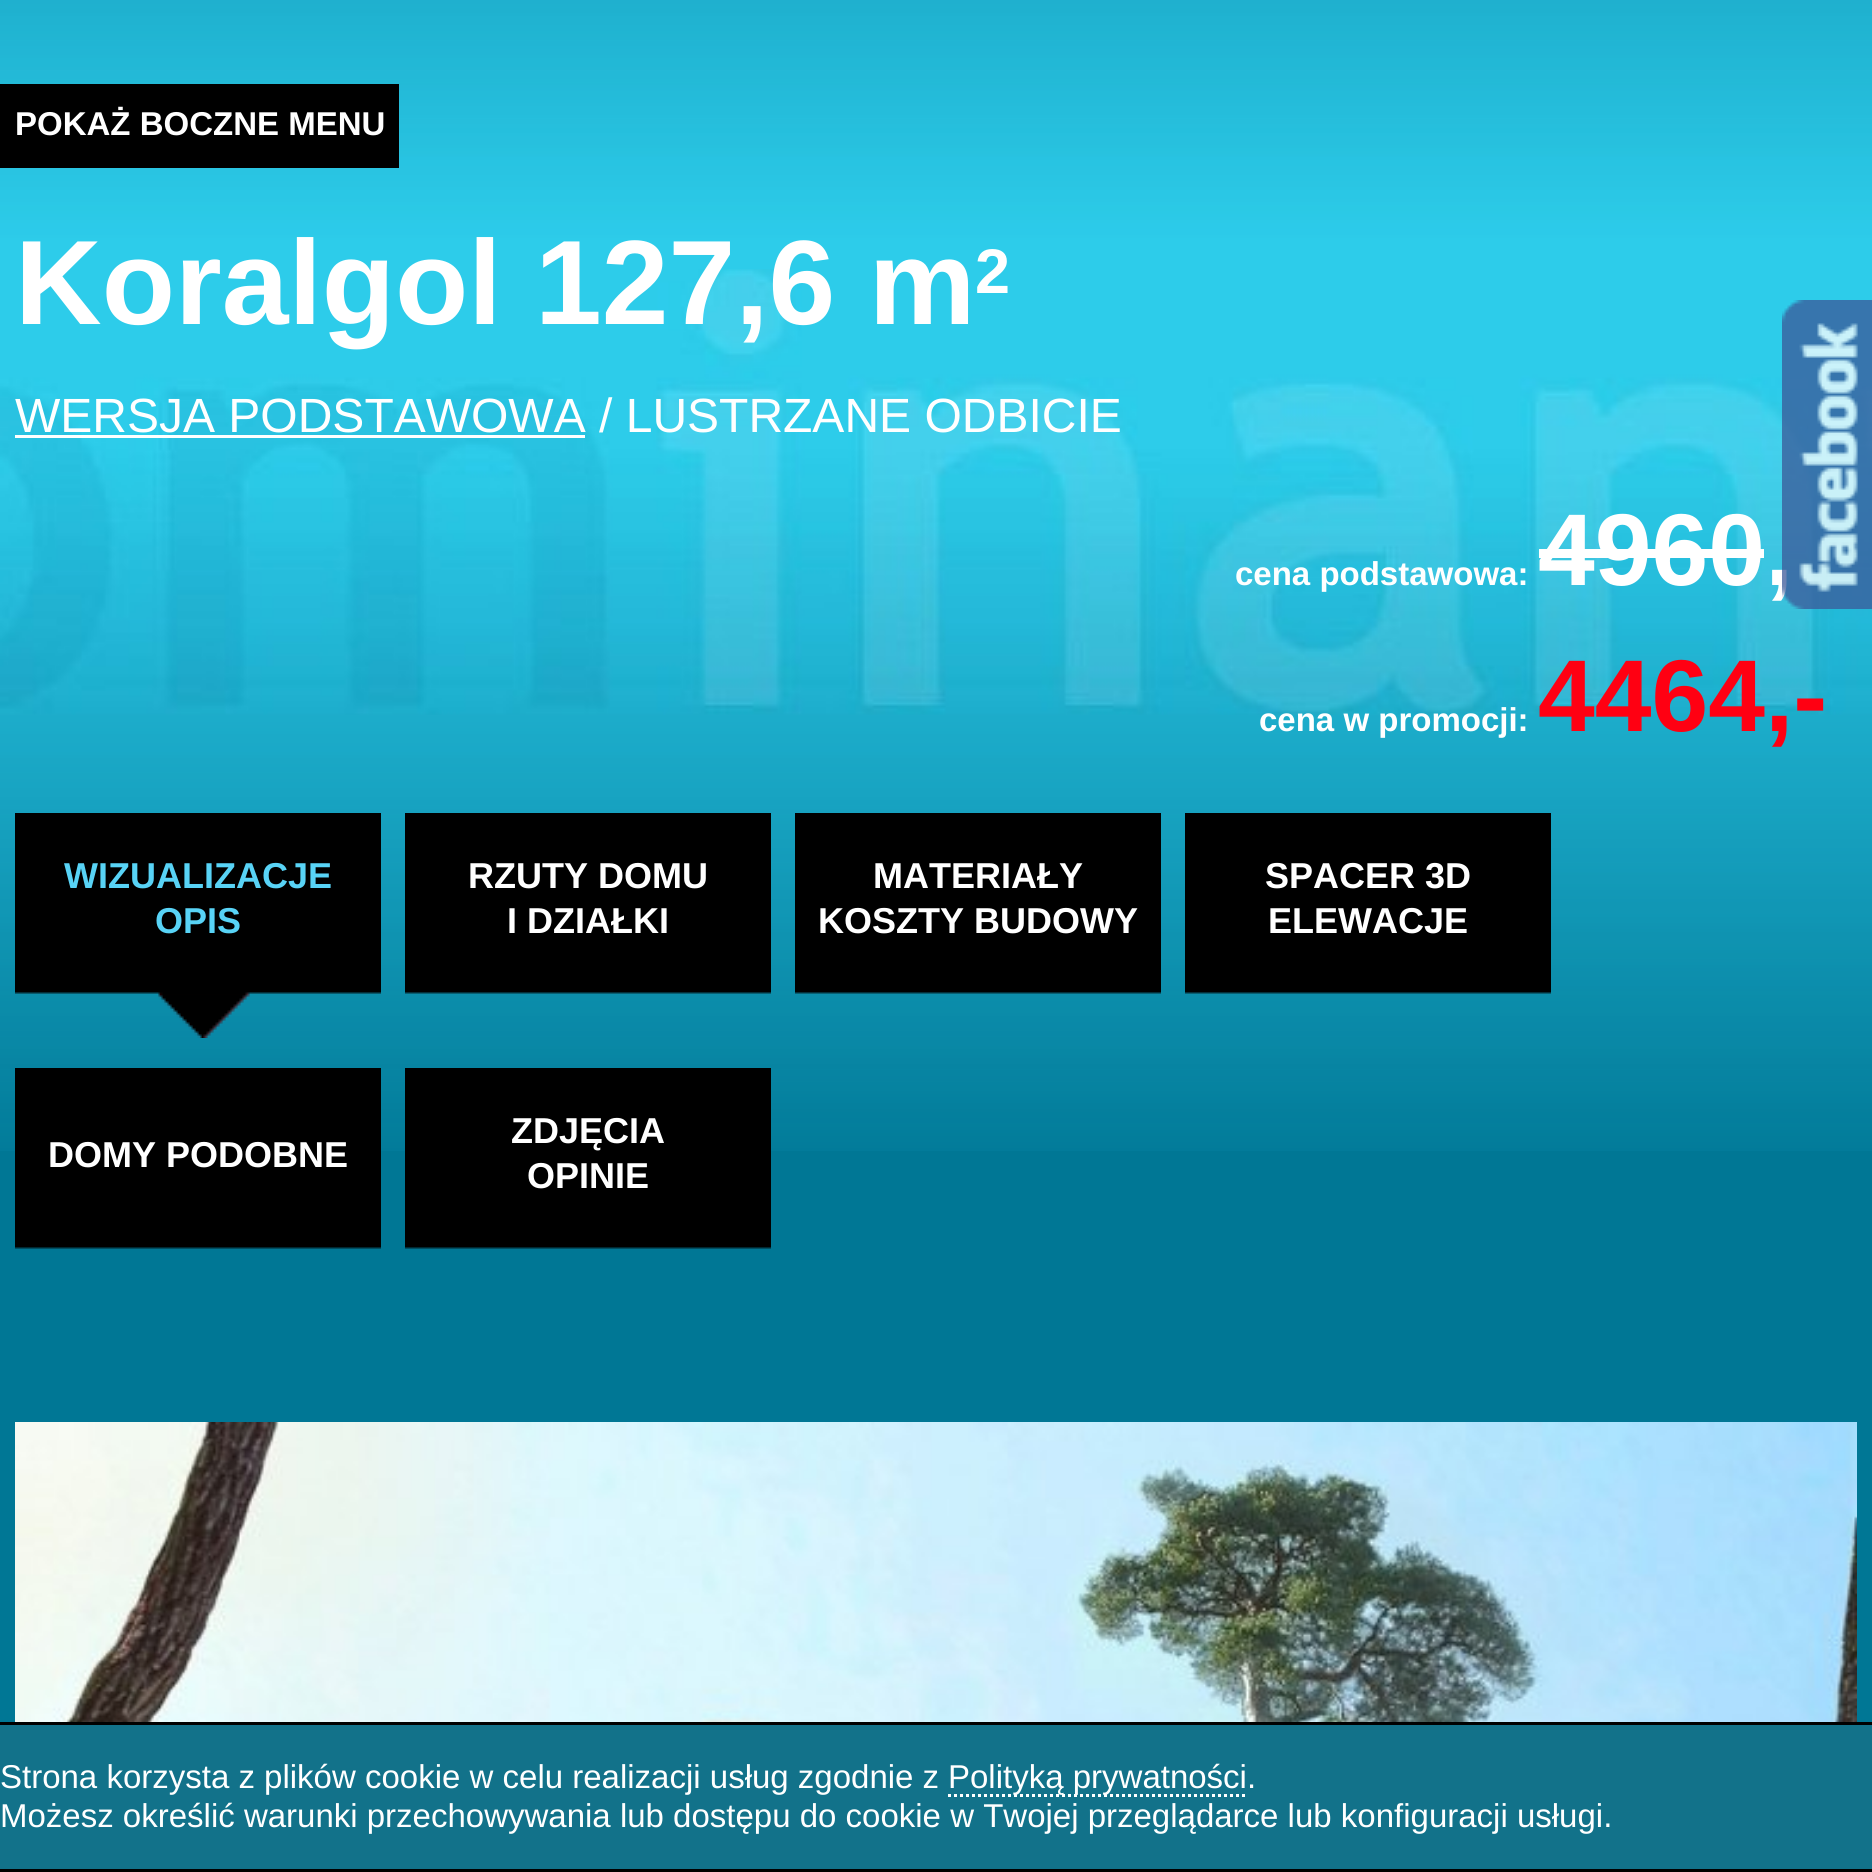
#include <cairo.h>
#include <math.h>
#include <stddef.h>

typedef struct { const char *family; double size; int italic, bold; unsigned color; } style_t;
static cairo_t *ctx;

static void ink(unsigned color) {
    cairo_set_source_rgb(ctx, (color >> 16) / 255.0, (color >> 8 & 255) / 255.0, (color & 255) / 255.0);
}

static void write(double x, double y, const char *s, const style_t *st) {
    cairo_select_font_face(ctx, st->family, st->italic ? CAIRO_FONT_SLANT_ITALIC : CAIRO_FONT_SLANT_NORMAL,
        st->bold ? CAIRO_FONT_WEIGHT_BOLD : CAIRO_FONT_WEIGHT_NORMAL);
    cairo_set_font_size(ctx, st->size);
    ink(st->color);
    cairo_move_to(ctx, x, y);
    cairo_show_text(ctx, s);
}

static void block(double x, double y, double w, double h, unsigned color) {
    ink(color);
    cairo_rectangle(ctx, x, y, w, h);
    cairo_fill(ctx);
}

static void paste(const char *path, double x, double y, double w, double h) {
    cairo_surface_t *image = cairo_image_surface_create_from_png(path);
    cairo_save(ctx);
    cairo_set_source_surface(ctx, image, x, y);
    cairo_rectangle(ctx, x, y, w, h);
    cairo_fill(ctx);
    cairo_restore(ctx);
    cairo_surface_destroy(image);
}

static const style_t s1 = {"Liberation Sans", 33, 0, 1, 0xffffff};
static const style_t s2 = {"Liberation Sans", 120, 0, 1, 0xffffff};
static const style_t s3 = {"Liberation Sans", 63, 0, 1, 0xffffff};
static const style_t s4 = {"Liberation Sans", 48, 0, 0, 0xffffff};
static const style_t s5 = {"Liberation Sans", 102, 0, 1, 0xffffff};
static const style_t s6 = {"Liberation Sans", 102, 0, 1, 0xff0012};
static const style_t s7 = {"Liberation Sans", 36, 0, 1, 0x58d3f6};
static const style_t s8 = {"Liberation Sans", 36, 0, 1, 0xffffff};
static const style_t s9 = {"Liberation Sans", 33, 0, 0, 0xffffff};

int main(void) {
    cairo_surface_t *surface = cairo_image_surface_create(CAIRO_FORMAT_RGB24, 1872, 1872);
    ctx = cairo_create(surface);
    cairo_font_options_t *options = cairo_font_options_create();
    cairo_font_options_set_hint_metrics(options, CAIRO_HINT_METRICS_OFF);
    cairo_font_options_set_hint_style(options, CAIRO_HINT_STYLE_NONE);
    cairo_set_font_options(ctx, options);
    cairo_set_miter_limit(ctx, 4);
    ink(0x007795);
    cairo_paint(ctx);
    paste("pic1.png", 0, 0, 1872, 1151);
    paste("pic2.png", 0, 269, 1872, 446);
    block(0, 84, 399, 84, 0x000000);
    write(15, 135, "POKAŻ BOCZNE MENU", &s1);
    write(15, 324, "Koralgol 127,6 m", &s2);
    write(975, 293, "2", &s3);
    write(15, 432, "WERSJA PODSTAWOWA / LUSTRZANE ODBICIE", &s4);
    block(15, 435, 570, 3, 0xffffff);
    write(1235, 585, "cena podstawowa:", &s1);
    write(1538, 585, "4960,", &s5);
    block(1539, 549, 225, 9, 0xffffff);
    write(1259, 731, "cena w promocji:", &s1);
    write(1538, 731, "4464,-", &s6);
    paste("pic3.png", 15, 813, 366, 225);
    write(64, 888, "WIZUALIZACJE", &s7);
    write(155, 933, "OPIS", &s7);
    paste("pic4.png", 405, 813, 366, 181);
    write(468, 888, "RZUTY DOMU", &s8);
    write(507, 933, "I DZIAŁKI", &s8);
    paste("pic4.png", 795, 813, 366, 181);
    write(873, 888, "MATERIAŁY", &s8);
    write(818, 933, "KOSZTY BUDOWY", &s8);
    paste("pic4.png", 1185, 813, 366, 181);
    write(1265, 888, "SPACER 3D", &s8);
    write(1268, 933, "ELEWACJE", &s8);
    paste("pic5.png", 15, 1068, 366, 181);
    write(48, 1167, "DOMY PODOBNE", &s8);
    paste("pic5.png", 405, 1068, 366, 181);
    write(511, 1143, "ZDJĘCIA", &s8);
    write(527, 1188, "OPINIE", &s8);
    paste("pic6.png", 15, 1422, 1842, 300);
    paste("pic7.png", 1782, 300, 90, 309);
    block(0, 1725, 1872, 144, 0x12728a);
    block(0, 1722, 1872, 3, 0x000000);
    block(0, 1869, 1872, 3, 0x000000);
    write(0, 1788, "Strona korzysta z plików cookie w celu realizacji usług zgodnie z", &s9);
    cairo_new_path(ctx);
    cairo_move_to(ctx, 948, 1795.5);
    cairo_line_to(ctx, 1248, 1795.5);
    cairo_set_line_width(ctx, 3);
    cairo_set_dash(ctx, (double[]){3, 3}, 2, 0);
    cairo_stroke(ctx);
    write(948, 1788, "Polityką prywatności.", &s9);
    write(0, 1827, "Możesz określić warunki przechowywania lub dostępu do cookie w Twojej przeglądarce lub konfiguracji usługi.", &s9);
    cairo_surface_write_to_png(surface, "screenshot.png");
    cairo_font_options_destroy(options);
    cairo_destroy(ctx);
    cairo_surface_destroy(surface);
    return 0;
}
